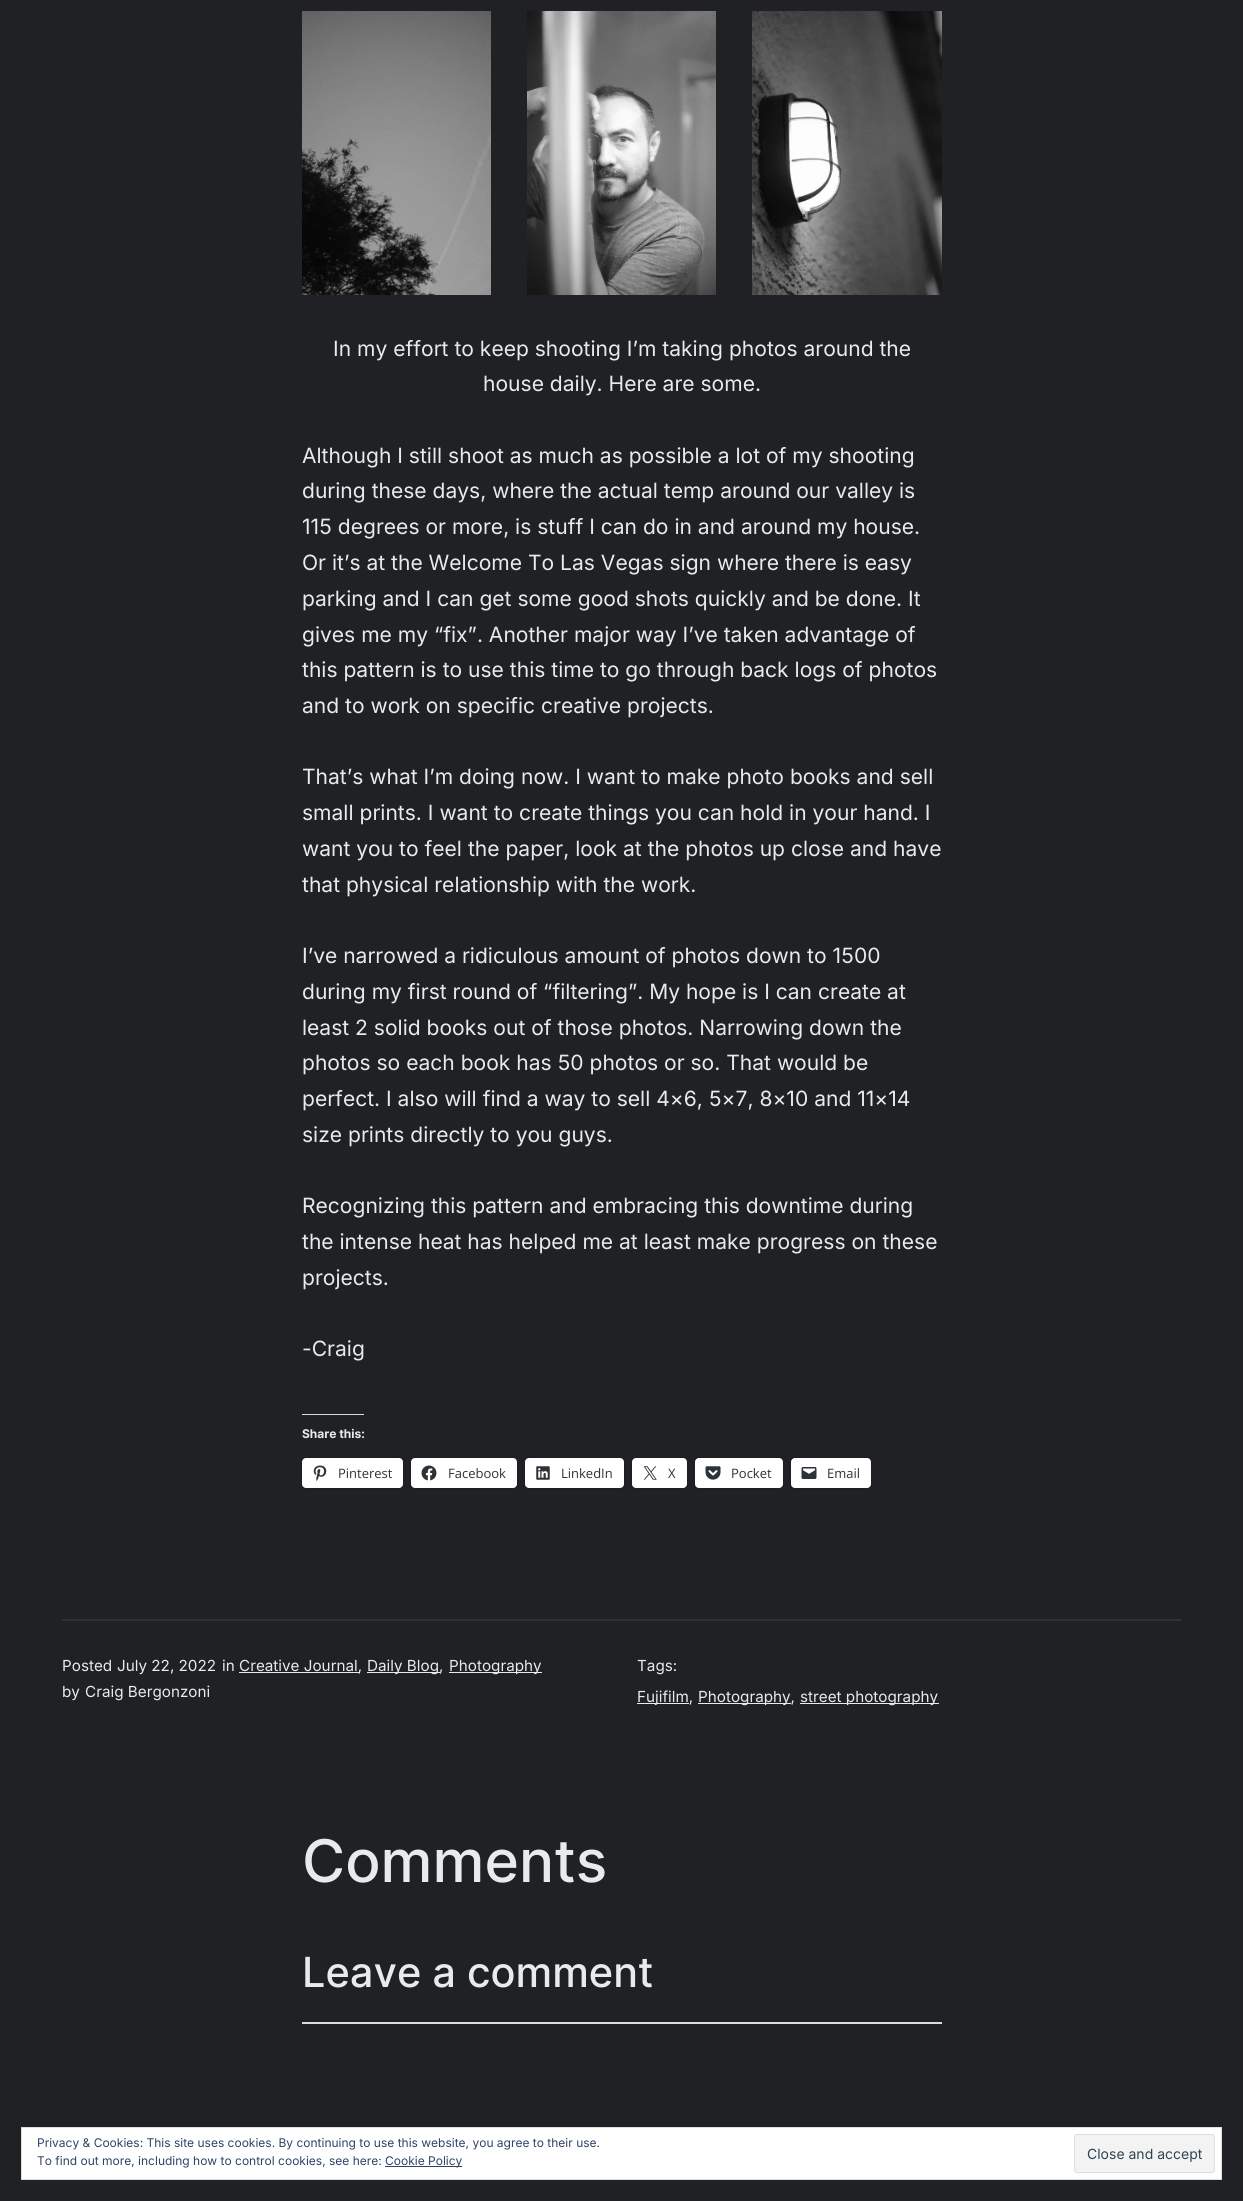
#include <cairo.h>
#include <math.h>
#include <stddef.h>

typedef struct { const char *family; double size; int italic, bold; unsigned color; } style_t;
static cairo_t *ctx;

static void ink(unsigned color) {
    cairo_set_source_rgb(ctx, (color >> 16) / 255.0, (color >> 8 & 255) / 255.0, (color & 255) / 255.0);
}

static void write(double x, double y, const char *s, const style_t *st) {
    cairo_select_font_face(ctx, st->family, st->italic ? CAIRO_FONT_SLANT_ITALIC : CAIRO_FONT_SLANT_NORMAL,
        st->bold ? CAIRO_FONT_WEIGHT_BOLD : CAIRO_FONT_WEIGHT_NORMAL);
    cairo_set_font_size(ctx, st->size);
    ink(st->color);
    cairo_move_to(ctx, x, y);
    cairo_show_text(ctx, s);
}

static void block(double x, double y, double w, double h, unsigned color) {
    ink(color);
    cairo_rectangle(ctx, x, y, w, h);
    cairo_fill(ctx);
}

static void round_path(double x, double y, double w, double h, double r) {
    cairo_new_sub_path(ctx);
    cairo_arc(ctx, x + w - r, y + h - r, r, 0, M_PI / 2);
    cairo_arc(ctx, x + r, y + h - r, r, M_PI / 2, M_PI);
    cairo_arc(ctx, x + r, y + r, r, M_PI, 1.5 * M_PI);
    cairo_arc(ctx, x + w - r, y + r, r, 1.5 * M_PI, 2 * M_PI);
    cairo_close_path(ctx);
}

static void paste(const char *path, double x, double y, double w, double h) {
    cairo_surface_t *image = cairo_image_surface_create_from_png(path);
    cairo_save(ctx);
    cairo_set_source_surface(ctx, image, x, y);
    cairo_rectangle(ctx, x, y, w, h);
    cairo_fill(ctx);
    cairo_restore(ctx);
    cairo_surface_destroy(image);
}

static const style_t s1 = {"Inter", 21.05, 0, 0, 0xe8eaed};
static const style_t s2 = {"Inter", 12, 0, 1, 0xe8eaed};
static const style_t s3 = {"Open Sans", 13, 0, 0, 0x2c3338};
static const style_t s4 = {"Inter", 15.25, 0, 0, 0xe8eaed};
static const style_t s5 = {"Inter Medium", 58.75, 0, 0, 0xe8eaed};
static const style_t s6 = {"Inter Medium", 41.5, 0, 0, 0xe8eaed};
static const style_t s7 = {"Inter", 12, 0, 0, 0x2e4467};
static const style_t s8 = {"Inter", 14, 0, 0, 0x2e4453};

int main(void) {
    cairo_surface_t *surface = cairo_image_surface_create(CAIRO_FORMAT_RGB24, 1243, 2201);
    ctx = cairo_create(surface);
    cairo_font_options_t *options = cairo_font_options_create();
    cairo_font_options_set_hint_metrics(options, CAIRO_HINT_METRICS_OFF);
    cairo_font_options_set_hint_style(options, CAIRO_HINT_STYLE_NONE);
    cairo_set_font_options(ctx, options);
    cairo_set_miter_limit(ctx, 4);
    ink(0x202124);
    cairo_paint(ctx);
    paste("pic1.png", 302, 11, 189, 284);
    paste("pic2.png", 527, 11, 189, 284);
    paste("pic3.png", 752, 11, 190, 284);
    write(333, 356, "In my effort to keep shooting I’m taking photos around the", &s1);
    write(483, 391, "house daily. Here are some.", &s1);
    write(302, 463, "Although I still shoot as much as possible a lot of my shooting", &s1);
    write(302, 498, "during these days, where the actual temp around our valley is", &s1);
    write(302, 534, "115 degrees or more, is stuff I can do in and around my house.", &s1);
    write(302, 570, "Or it’s at the Welcome To Las Vegas sign where there is easy", &s1);
    write(302, 606, "parking and I can get some good shots quickly and be done. It", &s1);
    write(302, 642, "gives me my “fix”. Another major way I’ve taken advantage of", &s1);
    write(302, 677, "this pattern is to use this time to go through back logs of photos", &s1);
    write(302, 713, "and to work on specific creative projects.", &s1);
    write(302, 784, "That’s what I’m doing now. I want to make photo books and sell", &s1);
    write(302, 820, "small prints. I want to create things you can hold in your hand. I", &s1);
    write(302, 856, "want you to feel the paper, look at the photos up close and have", &s1);
    write(302, 892, "that physical relationship with the work.", &s1);
    write(302, 963, "I’ve narrowed a ridiculous amount of photos down to 1500", &s1);
    write(302, 999, "during my first round of “filtering”. My hope is I can create at", &s1);
    write(302, 1035, "least 2 solid books out of those photos. Narrowing down the", &s1);
    write(302, 1070, "photos so each book has 50 photos or so. That would be", &s1);
    write(302, 1106, "perfect. I also will find a way to sell 4×6, 5×7, 8×10 and 11×14", &s1);
    write(302, 1142, "size prints directly to you guys.", &s1);
    write(302, 1213, "Recognizing this pattern and embracing this downtime during", &s1);
    write(302, 1249, "the intense heat has helped me at least make progress on these", &s1);
    write(302, 1285, "projects.", &s1);
    write(302, 1356, "-Craig", &s1);
    block(302, 1414, 62, 1, 0xdcdcde);
    write(302, 1438, "Share this:", &s2);
    round_path(301.5, 1457.5, 102, 31, 4.5);
    ink(0x1c1d20);
    cairo_set_line_width(ctx, 1);
    cairo_stroke(ctx);
    ink(0xffffff);
    round_path(302, 1458, 101, 30, 4);
    cairo_fill(ctx);
    paste("pic4.png", 313, 1465, 14, 16);
    write(338, 1478, "Pinterest", &s3);
    round_path(410.5, 1457.5, 107, 31, 4.5);
    ink(0x1c1d20);
    cairo_stroke(ctx);
    ink(0xffffff);
    round_path(411, 1458, 106, 30, 4);
    cairo_fill(ctx);
    paste("pic5.png", 421, 1465, 16, 16);
    write(448, 1478, "Facebook", &s3);
    round_path(524.5, 1457.5, 100, 31, 4.5);
    ink(0x1c1d20);
    cairo_stroke(ctx);
    ink(0xffffff);
    round_path(525, 1458, 99, 30, 4);
    cairo_fill(ctx);
    paste("pic6.png", 536, 1466, 14, 14);
    write(561, 1478, "LinkedIn", &s3);
    round_path(631.5, 1457.5, 56, 31, 4.5);
    ink(0x1c1d20);
    cairo_stroke(ctx);
    ink(0xffffff);
    round_path(632, 1458, 55, 30, 4);
    cairo_fill(ctx);
    paste("pic7.png", 643, 1466, 14, 14);
    write(668, 1478, "X", &s3);
    round_path(694.5, 1457.5, 89, 31, 4.5);
    ink(0x1c1d20);
    cairo_stroke(ctx);
    ink(0xffffff);
    round_path(695, 1458, 88, 30, 4);
    cairo_fill(ctx);
    paste("pic8.png", 705, 1466, 16, 14);
    write(731, 1478, "Pocket", &s3);
    round_path(790.5, 1457.5, 81, 31, 4.5);
    ink(0x1c1d20);
    cairo_stroke(ctx);
    ink(0xffffff);
    round_path(791, 1458, 80, 30, 4);
    cairo_fill(ctx);
    paste("pic9.png", 801, 1467, 16, 12);
    write(827, 1478, "Email", &s3);
    block(62, 1619, 1119, 2, 0x303134);
    write(62, 1671, "Posted", &s4);
    write(117, 1671, "July 22, 2022", &s4);
    write(222, 1671, "in", &s4);
    block(239, 1672, 120, 1, 0xe8eaed);
    write(239, 1671, "Creative Journal,", &s4);
    block(367, 1672, 73, 1, 0xe8eaed);
    write(367, 1671, "Daily Blog,", &s4);
    block(449, 1672, 93, 1, 0xe8eaed);
    write(449, 1671, "Photography", &s4);
    write(62, 1697, "by", &s4);
    write(85, 1697, "Craig Bergonzoni", &s4);
    write(637, 1671, "Tags:", &s4);
    block(637, 1703, 52, 1, 0xe8eaed);
    write(637, 1702, "Fujifilm,", &s4);
    block(698, 1703, 93, 1, 0xe8eaed);
    write(698, 1702, "Photography,", &s4);
    block(800, 1703, 139, 1, 0xe8eaed);
    write(800, 1702, "street photography", &s4);
    write(302, 1882, "Comments", &s5);
    write(302, 1987, "Leave a comment", &s6);
    block(302, 2022, 640, 2, 0xdcdcde);
    ink(0xffffff);
    cairo_rectangle(ctx, 21.5, 2127.5, 1200, 52);
    cairo_fill_preserve(ctx);
    ink(0xdedede);
    cairo_stroke(ctx);
    write(37, 2147, "Privacy & Cookies: This site uses cookies. By continuing to use this website, you agree to their use.", &s7);
    write(37, 2165, "To find out more, including how to control cookies, see here:", &s7);
    block(385, 2166, 77, 1, 0x2e4467);
    write(385, 2165, "Cookie Policy", &s7);
    ink(0xf3f3f3);
    round_path(1074.5, 2134.5, 140, 38, 2.5);
    cairo_fill_preserve(ctx);
    ink(0xdedede);
    cairo_stroke(ctx);
    write(1087, 2159, "Close and accept", &s8);
    cairo_surface_write_to_png(surface, "screenshot.png");
    cairo_font_options_destroy(options);
    cairo_destroy(ctx);
    cairo_surface_destroy(surface);
    return 0;
}
